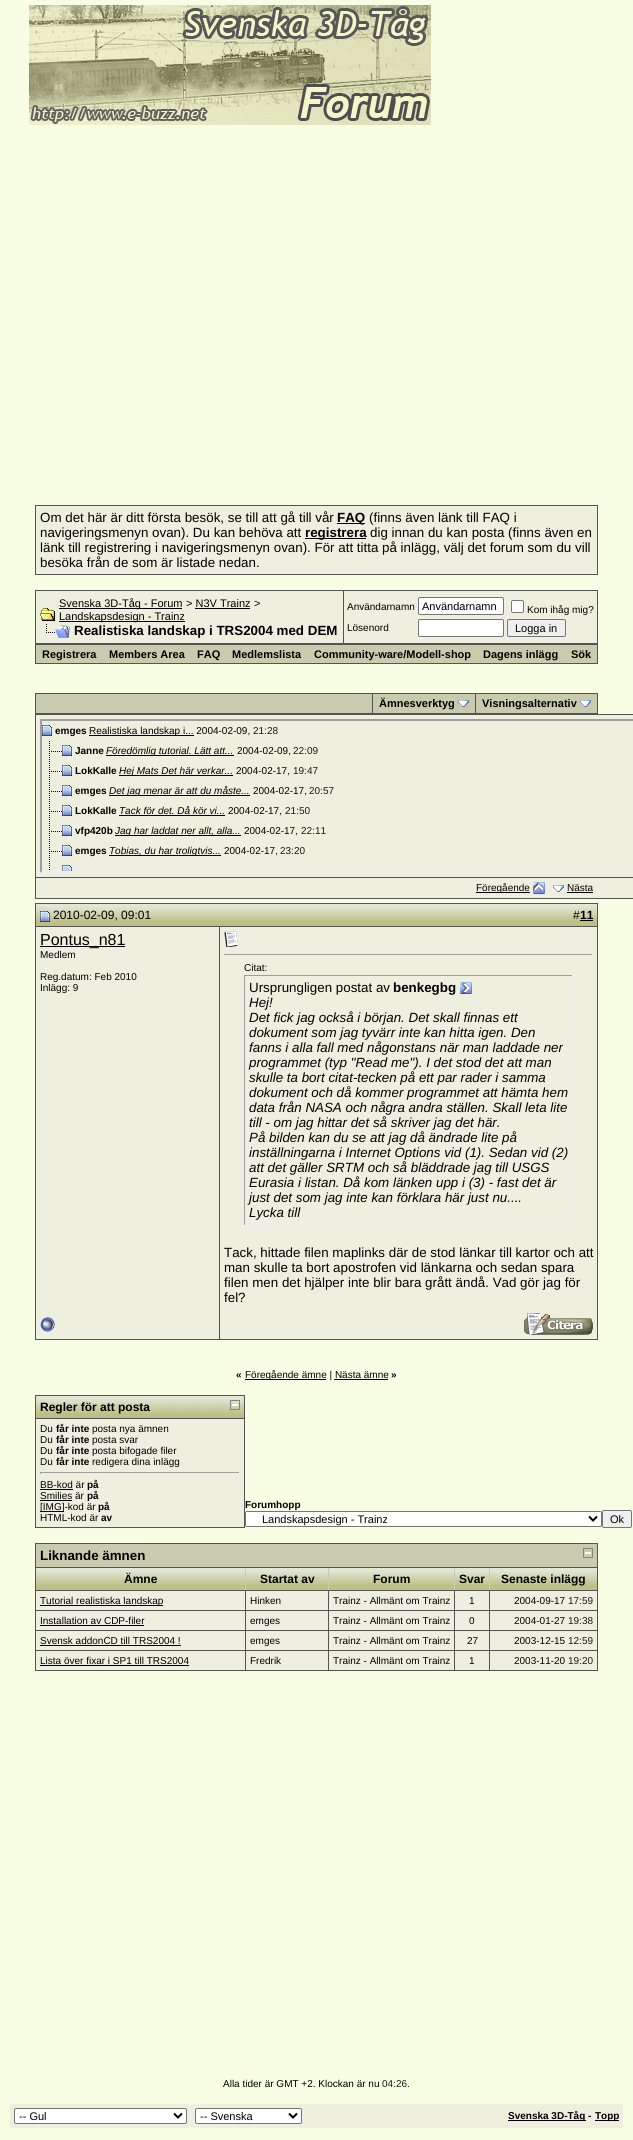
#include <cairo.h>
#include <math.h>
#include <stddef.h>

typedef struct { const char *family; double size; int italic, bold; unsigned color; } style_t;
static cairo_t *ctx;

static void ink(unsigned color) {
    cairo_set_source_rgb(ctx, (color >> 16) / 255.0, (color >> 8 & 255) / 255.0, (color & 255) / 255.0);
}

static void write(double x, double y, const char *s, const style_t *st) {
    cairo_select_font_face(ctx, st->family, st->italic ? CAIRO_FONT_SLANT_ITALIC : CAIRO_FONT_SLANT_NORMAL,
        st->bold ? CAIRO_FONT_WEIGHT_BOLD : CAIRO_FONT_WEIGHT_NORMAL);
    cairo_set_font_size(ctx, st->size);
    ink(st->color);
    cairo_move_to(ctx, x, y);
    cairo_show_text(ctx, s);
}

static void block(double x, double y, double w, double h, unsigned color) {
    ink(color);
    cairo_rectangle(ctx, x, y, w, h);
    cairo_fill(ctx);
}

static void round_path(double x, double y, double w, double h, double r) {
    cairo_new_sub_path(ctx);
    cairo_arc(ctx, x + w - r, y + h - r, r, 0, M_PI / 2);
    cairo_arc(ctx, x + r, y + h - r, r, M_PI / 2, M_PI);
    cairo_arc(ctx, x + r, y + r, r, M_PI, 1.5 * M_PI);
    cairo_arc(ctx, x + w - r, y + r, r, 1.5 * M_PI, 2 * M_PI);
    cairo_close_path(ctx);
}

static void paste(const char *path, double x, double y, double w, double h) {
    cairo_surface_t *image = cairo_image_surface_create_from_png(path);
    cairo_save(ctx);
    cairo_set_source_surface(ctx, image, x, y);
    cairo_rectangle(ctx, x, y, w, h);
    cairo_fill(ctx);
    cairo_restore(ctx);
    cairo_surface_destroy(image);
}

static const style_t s1 = {"Liberation Sans", 13.35, 0, 0, 0x000000};
static const style_t s2 = {"Liberation Sans", 13.35, 0, 1, 0x000000};
static const style_t s3 = {"Liberation Sans", 11, 0, 0, 0x000000};
static const style_t s4 = {"Liberation Sans", 10, 0, 0, 0x000000};
static const style_t s5 = {"Liberation Sans", 11, 0, 1, 0x000000};
static const style_t s6 = {"Liberation Sans", 10, 0, 1, 0x000000};
static const style_t s7 = {"Liberation Sans", 10, 0, 0, 0x181818};
static const style_t s8 = {"Liberation Sans", 10, 1, 0, 0x000000};
static const style_t s9 = {"Liberation Sans", 12, 0, 0, 0x000000};
static const style_t s10 = {"Liberation Sans", 12, 0, 1, 0x000000};
static const style_t s11 = {"Liberation Sans", 16, 0, 0, 0x000000};
static const style_t s12 = {"Liberation Sans", 13.35, 1, 0, 0x000000};

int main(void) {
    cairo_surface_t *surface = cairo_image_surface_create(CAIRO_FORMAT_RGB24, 633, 2140);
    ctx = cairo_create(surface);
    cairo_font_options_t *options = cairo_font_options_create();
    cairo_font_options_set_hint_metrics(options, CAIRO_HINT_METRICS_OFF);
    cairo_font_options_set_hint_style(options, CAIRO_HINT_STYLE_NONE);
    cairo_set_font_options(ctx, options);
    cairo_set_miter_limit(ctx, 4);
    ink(0xf8fee4);
    cairo_paint(ctx);
    paste("pic1.png", 29, 5, 402, 120);
    block(35, 505, 563, 70, 0x545454);
    block(36, 506, 561, 68, 0xefefdf);
    write(40, 522, "Om det här är ditt första besök, se till att gå till vår", &s1);
    block(337, 523, 28, 1, 0x000000);
    write(337, 522, "FAQ", &s2);
    write(369, 522, "(finns även länk till FAQ i", &s1);
    write(40, 537, "navigeringsmenyn ovan). Du kan behöva att", &s1);
    block(305, 538, 61, 1, 0x000000);
    write(305, 537, "registrera", &s2);
    write(370, 537, "dig innan du kan posta (finns även en", &s1);
    write(40, 552, "länk till registrering i navigeringsmenyn ovan). För att titta på inlägg, välj det forum som du vill", &s1);
    write(40, 567, "besöka från de som är listade nedan.", &s1);
    block(35, 590, 563, 74, 0x545454);
    block(36, 591, 307, 52, 0xefefdf);
    paste("pic2.png", 40, 608, 15, 13);
    block(59, 608, 123, 1, 0x000000);
    write(59, 607, "Svenska 3D-Tåg - Forum", &s3);
    write(186, 607, "> N3V Trainz", &s3);
    block(195, 608, 55, 1, 0x000000);
    write(254, 607, ">", &s3);
    block(59, 621, 126, 1, 0x000000);
    write(59, 620, "Landskapsdesign - Trainz", &s3);
    paste("pic3.png", 46, 624, 24, 14);
    write(74, 635, "Realistiska landskap i TRS2004 med DEM", &s2);
    block(344, 591, 253, 52, 0xefefdf);
    write(347, 610, "Användarnamn", &s4);
    ink(0xffffff);
    round_path(418.5, 597.5, 85, 17, 1.5);
    cairo_fill_preserve(ctx);
    ink(0x767676);
    cairo_set_line_width(ctx, 1);
    cairo_stroke(ctx);
    write(422, 610, "Användarnamn", &s3);
    ink(0xffffff);
    round_path(511.5, 600.5, 12, 12, 1.5);
    cairo_fill_preserve(ctx);
    ink(0x767676);
    cairo_stroke(ctx);
    write(527, 613, "Kom ihåg mig?", &s4);
    write(347, 631, "Lösenord", &s4);
    ink(0xffffff);
    round_path(418.5, 619.5, 85, 17, 1.5);
    cairo_fill_preserve(ctx);
    ink(0x767676);
    cairo_stroke(ctx);
    ink(0xefefef);
    round_path(507.5, 619.5, 58, 17, 1.5);
    cairo_fill_preserve(ctx);
    ink(0x767676);
    cairo_stroke(ctx);
    write(515, 632, "Logga in", &s3);
    block(36, 645, 561, 18, 0xcacaae);
    write(42, 658, "Registrera", &s5);
    write(109, 658, "Members Area", &s5);
    write(197, 658, "FAQ", &s5);
    write(232, 658, "Medlemslista", &s5);
    write(314, 658, "Community-ware/Modell-shop", &s5);
    write(483, 658, "Dagens inlägg", &s5);
    write(571, 658, "Sök", &s5);
    block(35, 693, 563, 21, 0x545454);
    block(36, 694, 336, 19, 0xcacaae);
    block(373, 694, 102, 19, 0xcacaae);
    write(379, 707, "Ämnesverktyg", &s5);
    paste("pic4.png", 458, 700, 11, 7);
    block(476, 694, 121, 19, 0xcacaae);
    write(482, 707, "Visningsalternativ", &s5);
    paste("pic4.png", 580, 700, 11, 7);
    block(35, 714, 598, 185, 0x545454);
    block(36, 715, 597, 162, 0xefefdf);
    ink(0x9f9f9f);
    cairo_new_path(ctx);
    cairo_move_to(ctx, 40, 719);
    cairo_line_to(ctx, 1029, 719);
    cairo_line_to(ctx, 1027, 721);
    cairo_line_to(ctx, 42, 721);
    cairo_close_path(ctx);
    cairo_fill(ctx);
    ink(0xeeeeee);
    cairo_new_path(ctx);
    cairo_move_to(ctx, 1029, 873);
    cairo_line_to(ctx, 40, 873);
    cairo_line_to(ctx, 42, 871);
    cairo_line_to(ctx, 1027, 871);
    cairo_close_path(ctx);
    cairo_fill(ctx);
    ink(0x9f9f9f);
    cairo_new_path(ctx);
    cairo_move_to(ctx, 40, 873);
    cairo_line_to(ctx, 40, 719);
    cairo_line_to(ctx, 42, 721);
    cairo_line_to(ctx, 42, 871);
    cairo_close_path(ctx);
    cairo_fill(ctx);
    paste("pic5.png", 42, 725, 10, 11);
    write(55, 734, "emges", &s6);
    block(89, 735, 105, 1, 0x000000);
    write(89, 734, "Realistiska landskap i... 2004-02-09,", &s4);
    write(253, 734, "21:28", &s7);
    paste("pic6.png", 49, 741, 13, 19);
    paste("pic5.png", 62, 745, 10, 11);
    write(75, 754, "Janne", &s6);
    block(106, 755, 128, 1, 0x000000);
    write(106, 754, "Föredömlig tutorial. Lätt att...", &s8);
    write(237, 754, "2004-02-09,", &s4);
    write(293, 754, "22:09", &s7);
    paste("pic6.png", 49, 761, 13, 19);
    paste("pic5.png", 62, 765, 10, 11);
    write(75, 774, "LokKalle", &s6);
    block(119, 775, 114, 1, 0x000000);
    write(119, 774, "Hej Mats Det här verkar...", &s8);
    write(236, 774, "2004-02-17,", &s4);
    write(293, 774, "19:47", &s7);
    paste("pic6.png", 49, 781, 13, 19);
    paste("pic5.png", 62, 785, 10, 11);
    write(75, 794, "emges", &s6);
    block(109, 795, 141, 1, 0x000000);
    write(109, 794, "Det jag menar är att du måste...", &s8);
    write(253, 794, "2004-02-17,", &s4);
    write(309, 794, "20:57", &s7);
    paste("pic6.png", 49, 801, 13, 19);
    paste("pic5.png", 62, 805, 10, 11);
    write(75, 814, "LokKalle", &s6);
    write(119, 814, "Tack för det. Då kör vi...", &s8);
    block(119, 815, 106, 1, 0x000000);
    write(228, 814, "2004-02-17,", &s4);
    write(285, 814, "21:50", &s7);
    paste("pic6.png", 49, 821, 13, 19);
    paste("pic5.png", 62, 825, 10, 11);
    write(75, 834, "vfp420b", &s6);
    block(115, 835, 126, 1, 0x000000);
    write(115, 834, "Jag har laddat ner allt, alla...", &s8);
    write(244, 834, "2004-02-17,", &s4);
    write(301, 834, "22:11", &s7);
    paste("pic6.png", 49, 841, 13, 19);
    paste("pic5.png", 62, 845, 10, 11);
    write(75, 854, "emges", &s6);
    block(109, 855, 112, 1, 0x000000);
    write(109, 854, "Tobias, du har troligtvis...", &s8);
    write(224, 854, "2004-02-17,", &s4);
    write(280, 854, "23:20", &s7);
    paste("pic7.png", 49, 861, 1, 9);
    paste("pic8.png", 62, 865, 10, 6);
    block(36, 878, 597, 20, 0xefefdf);
    block(476, 892, 54, 1, 0x000000);
    write(476, 891, "Föregående", &s4);
    paste("pic9.png", 533, 882, 12, 12);
    paste("pic10.png", 553, 885, 11, 7);
    write(567, 891, "Nästa", &s4);
    block(567, 892, 26, 1, 0x000000);
    block(597, 927, 1, 413, 0x545454);
    paste("pic11.png", 36, 904, 184, 22);
    block(35, 903, 563, 1, 0x545454);
    block(35, 926, 185, 1, 0x545454);
    block(35, 903, 1, 406, 0x545454);
    paste("pic12.png", 40, 911, 10, 11);
    write(53, 919, "2010-02-09, 09:01", &s9);
    paste("pic13.png", 220, 904, 377, 22);
    block(597, 903, 1, 24, 0x545454);
    block(220, 926, 378, 1, 0x545454);
    write(573, 919, "#", &s9);
    write(580, 919, "11", &s10);
    block(580, 920, 13, 1, 0x000000);
    block(36, 927, 183, 412, 0xefefdf);
    block(219, 927, 1, 413, 0x545454);
    block(40, 946, 85, 1, 0x000000);
    write(40, 945, "Pontus_n81", &s11);
    write(40, 958, "Medlem", &s4);
    write(40, 980, "Reg.datum: Feb 2010", &s4);
    write(40, 991, "Inlägg: 9", &s4);
    block(220, 927, 377, 412, 0xefefdf);
    paste("pic14.png", 224, 931, 15, 16);
    block(224, 954, 369, 1, 0x9f9f9f);
    block(592, 954, 1, 1, 0xeeeeee);
    write(244, 971, "Citat:", &s4);
    block(244, 975, 329, 1, 0x9f9f9f);
    block(572, 975, 1, 250, 0xeeeeee);
    block(244, 1224, 329, 1, 0xeeeeee);
    block(244, 975, 1, 250, 0x9f9f9f);
    write(249, 992, "Ursprungligen postat av", &s1);
    write(393, 992, "benkegbg", &s2);
    paste("pic15.png", 460, 982, 12, 12);
    write(249, 1007, "Hej!", &s12);
    write(249, 1022, "Det fick jag också i början. Det skall finnas ett", &s12);
    write(249, 1037, "dokument som jag tyvärr inte kan hitta igen. Den", &s12);
    write(249, 1052, "fanns i alla fall med någonstans när man laddade ner", &s12);
    write(249, 1067, "programmet (typ \"Read me\"). I det stod det att man", &s12);
    write(249, 1082, "skulle ta bort citat-tecken på ett par rader i samma", &s12);
    write(249, 1097, "dokument och då kommer programmet att hämta hem", &s12);
    write(249, 1112, "data från NASA och några andra ställen. Skall leta lite", &s12);
    write(249, 1127, "till - om jag hittar det så skriver jag det här.", &s12);
    write(249, 1142, "På bilden kan du se att jag då ändrade lite på", &s12);
    write(249, 1157, "inställningarna i Internet Options vid (1). Sedan vid (2)", &s12);
    write(249, 1172, "att det gäller SRTM och så bläddrade jag till USGS", &s12);
    write(249, 1187, "Eurasia i listan. Då kom länken upp i (3) - fast det är", &s12);
    write(249, 1202, "just det som jag inte kan förklara här just nu....", &s12);
    write(249, 1217, "Lycka till", &s12);
    write(224, 1257, "Tack, hittade filen maplinks där de stod länkar till kartor och att", &s1);
    write(224, 1272, "man skulle ta bort apostrofen vid länkarna och sedan spara", &s1);
    write(224, 1287, "filen men det hjälper inte blir bara grått ändå. Vad gör jag för", &s1);
    write(224, 1302, "fel?", &s1);
    block(35, 1339, 563, 1, 0x545454);
    block(35, 1309, 1, 31, 0x545454);
    paste("pic16.png", 40, 1317, 15, 15);
    paste("pic17.png", 524, 1313, 69, 22);
    write(236, 1378, "«", &s6);
    block(245, 1379, 81, 1, 0x000000);
    write(245, 1378, "Föregående ämne | Nästa ämne", &s4);
    write(391, 1378, "»", &s6);
    block(334, 1379, 54, 1, 0x000000);
    block(35, 1395, 210, 133, 0x545454);
    paste("pic18.png", 36, 1396, 208, 22);
    write(40, 1411, "Regler för att posta", &s10);
    paste("pic19.png", 230, 1400, 10, 10);
    block(36, 1419, 208, 108, 0xefefdf);
    write(40, 1432, "Du", &s4);
    write(56, 1432, "får inte", &s6);
    write(92, 1432, "posta nya ämnen", &s4);
    write(40, 1443, "Du", &s4);
    write(56, 1443, "får inte", &s6);
    write(92, 1443, "posta svar", &s4);
    write(40, 1454, "Du", &s4);
    write(56, 1454, "får inte", &s6);
    write(92, 1454, "posta bifogade filer", &s4);
    write(40, 1465, "Du", &s4);
    write(56, 1465, "får inte", &s6);
    write(92, 1465, "redigera dina inlägg", &s4);
    block(40, 1472, 200, 1, 0x9f9f9f);
    block(239, 1472, 1, 2, 0xeeeeee);
    block(40, 1473, 200, 1, 0xeeeeee);
    block(40, 1472, 1, 2, 0x9f9f9f);
    write(40, 1488, "BB-kod är", &s4);
    block(40, 1489, 33, 1, 0x000000);
    write(87, 1488, "på", &s6);
    write(40, 1499, "Smilies är", &s4);
    block(40, 1500, 32, 1, 0x000000);
    write(87, 1499, "på", &s6);
    block(40, 1511, 24, 1, 0x000000);
    write(40, 1510, "[IMG]-kod är", &s4);
    write(98, 1510, "på", &s6);
    write(40, 1521, "HTML-kod är", &s4);
    write(101, 1521, "av", &s6);
    write(245, 1508, "Forumhopp", &s6);
    ink(0xffffff);
    round_path(245.5, 1511.5, 356, 15, 1.5);
    cairo_fill_preserve(ctx);
    ink(0x767676);
    cairo_stroke(ctx);
    cairo_new_path(ctx);
    cairo_move_to(ctx, 589, 1516.5);
    cairo_line_to(ctx, 593, 1520.5);
    cairo_line_to(ctx, 597, 1516.5);
    ink(0x000000);
    cairo_set_line_width(ctx, 2);
    cairo_stroke(ctx);
    write(262, 1523, "Landskapsdesign - Trainz", &s3);
    ink(0xefefef);
    round_path(602.5, 1510.5, 29, 17, 1.5);
    cairo_fill_preserve(ctx);
    ink(0x767676);
    cairo_set_line_width(ctx, 1);
    cairo_stroke(ctx);
    write(610, 1523, "Ok", &s3);
    block(35, 1543, 563, 128, 0x545454);
    block(36, 1544, 561, 23, 0xcacaae);
    write(40, 1560, "Liknande ämnen", &s2);
    paste("pic20.png", 583, 1548, 10, 10);
    block(245, 1568, 245, 22, 0xcacaae);
    paste("pic21.png", 36, 1568, 209, 22);
    write(124, 1583, "Ämne", &s10);
    paste("pic22.png", 246, 1568, 82, 22);
    write(260, 1583, "Startat av", &s10);
    paste("pic23.png", 329, 1568, 125, 22);
    write(373, 1583, "Forum", &s10);
    paste("pic24.png", 455, 1568, 34, 22);
    write(459, 1583, "Svar", &s10);
    paste("pic25.png", 490, 1568, 107, 22);
    write(501, 1583, "Senaste inlägg", &s10);
    block(36, 1591, 209, 19, 0xefefdf);
    block(40, 1605, 123, 1, 0x000000);
    write(40, 1604, "Tutorial realistiska landskap", &s4);
    block(246, 1591, 82, 19, 0xefefdf);
    write(250, 1604, "Hinken", &s4);
    block(329, 1591, 125, 19, 0xefefdf);
    write(333, 1604, "Trainz - Allmänt om Trainz", &s4);
    block(455, 1591, 34, 19, 0xefefdf);
    write(469, 1604, "1", &s4);
    block(490, 1591, 107, 19, 0xefefdf);
    write(514, 1604, "2004-09-17", &s4);
    write(568, 1604, "17:59", &s7);
    block(36, 1611, 209, 19, 0xefefdf);
    write(40, 1624, "Installation av CDP-filer", &s4);
    block(40, 1625, 104, 1, 0x000000);
    block(246, 1611, 82, 19, 0xefefdf);
    write(250, 1624, "emges", &s4);
    block(329, 1611, 125, 19, 0xefefdf);
    write(333, 1624, "Trainz - Allmänt om Trainz", &s4);
    block(455, 1611, 34, 19, 0xefefdf);
    write(469, 1624, "0", &s4);
    block(490, 1611, 107, 19, 0xefefdf);
    write(514, 1624, "2004-01-27", &s4);
    write(568, 1624, "19:38", &s7);
    block(36, 1631, 209, 19, 0xefefdf);
    write(40, 1644, "Svensk addonCD till TRS2004 !", &s4);
    block(40, 1645, 141, 1, 0x000000);
    block(246, 1631, 82, 19, 0xefefdf);
    write(250, 1644, "emges", &s4);
    block(329, 1631, 125, 19, 0xefefdf);
    write(333, 1644, "Trainz - Allmänt om Trainz", &s4);
    block(455, 1631, 34, 19, 0xefefdf);
    write(467, 1644, "27", &s4);
    block(490, 1631, 107, 19, 0xefefdf);
    write(514, 1644, "2003-12-15", &s4);
    write(568, 1644, "12:59", &s7);
    block(36, 1651, 209, 19, 0xefefdf);
    write(40, 1664, "Lista över fixar i SP1 till TRS2004", &s4);
    block(40, 1665, 149, 1, 0x000000);
    block(246, 1651, 82, 19, 0xefefdf);
    write(250, 1664, "Fredrik", &s4);
    block(329, 1651, 125, 19, 0xefefdf);
    write(333, 1664, "Trainz - Allmänt om Trainz", &s4);
    block(455, 1651, 34, 19, 0xefefdf);
    write(469, 1664, "1", &s4);
    block(490, 1651, 107, 19, 0xefefdf);
    write(514, 1664, "2003-11-20", &s4);
    write(568, 1664, "19:20", &s7);
    write(223, 2087, "Alla tider är GMT +2. Klockan är nu", &s4);
    write(382, 2087, "04:26", &s7);
    write(407, 2087, ".", &s4);
    block(10, 2104, 613, 24, 0xefefdf);
    ink(0xffffff);
    round_path(14.5, 2108.5, 172, 15, 1.5);
    cairo_fill_preserve(ctx);
    ink(0x767676);
    cairo_stroke(ctx);
    cairo_new_path(ctx);
    cairo_move_to(ctx, 174, 2113.5);
    cairo_line_to(ctx, 178, 2117.5);
    cairo_line_to(ctx, 182, 2113.5);
    ink(0x000000);
    cairo_set_line_width(ctx, 2);
    cairo_stroke(ctx);
    write(19, 2120, "-- Gul", &s3);
    ink(0xffffff);
    round_path(195.5, 2108.5, 106, 15, 1.5);
    cairo_fill_preserve(ctx);
    ink(0x767676);
    cairo_set_line_width(ctx, 1);
    cairo_stroke(ctx);
    cairo_new_path(ctx);
    cairo_move_to(ctx, 289, 2113.5);
    cairo_line_to(ctx, 293, 2117.5);
    cairo_line_to(ctx, 297, 2113.5);
    ink(0x000000);
    cairo_set_line_width(ctx, 2);
    cairo_stroke(ctx);
    write(200, 2120, "-- Svenska", &s3);
    block(508, 2120, 78, 1, 0x000000);
    write(508, 2119, "Svenska 3D-Tåg -", &s6);
    block(595, 2120, 24, 1, 0x000000);
    write(595, 2119, "Topp", &s6);
    cairo_surface_write_to_png(surface, "screenshot.png");
    cairo_font_options_destroy(options);
    cairo_destroy(ctx);
    cairo_surface_destroy(surface);
    return 0;
}
